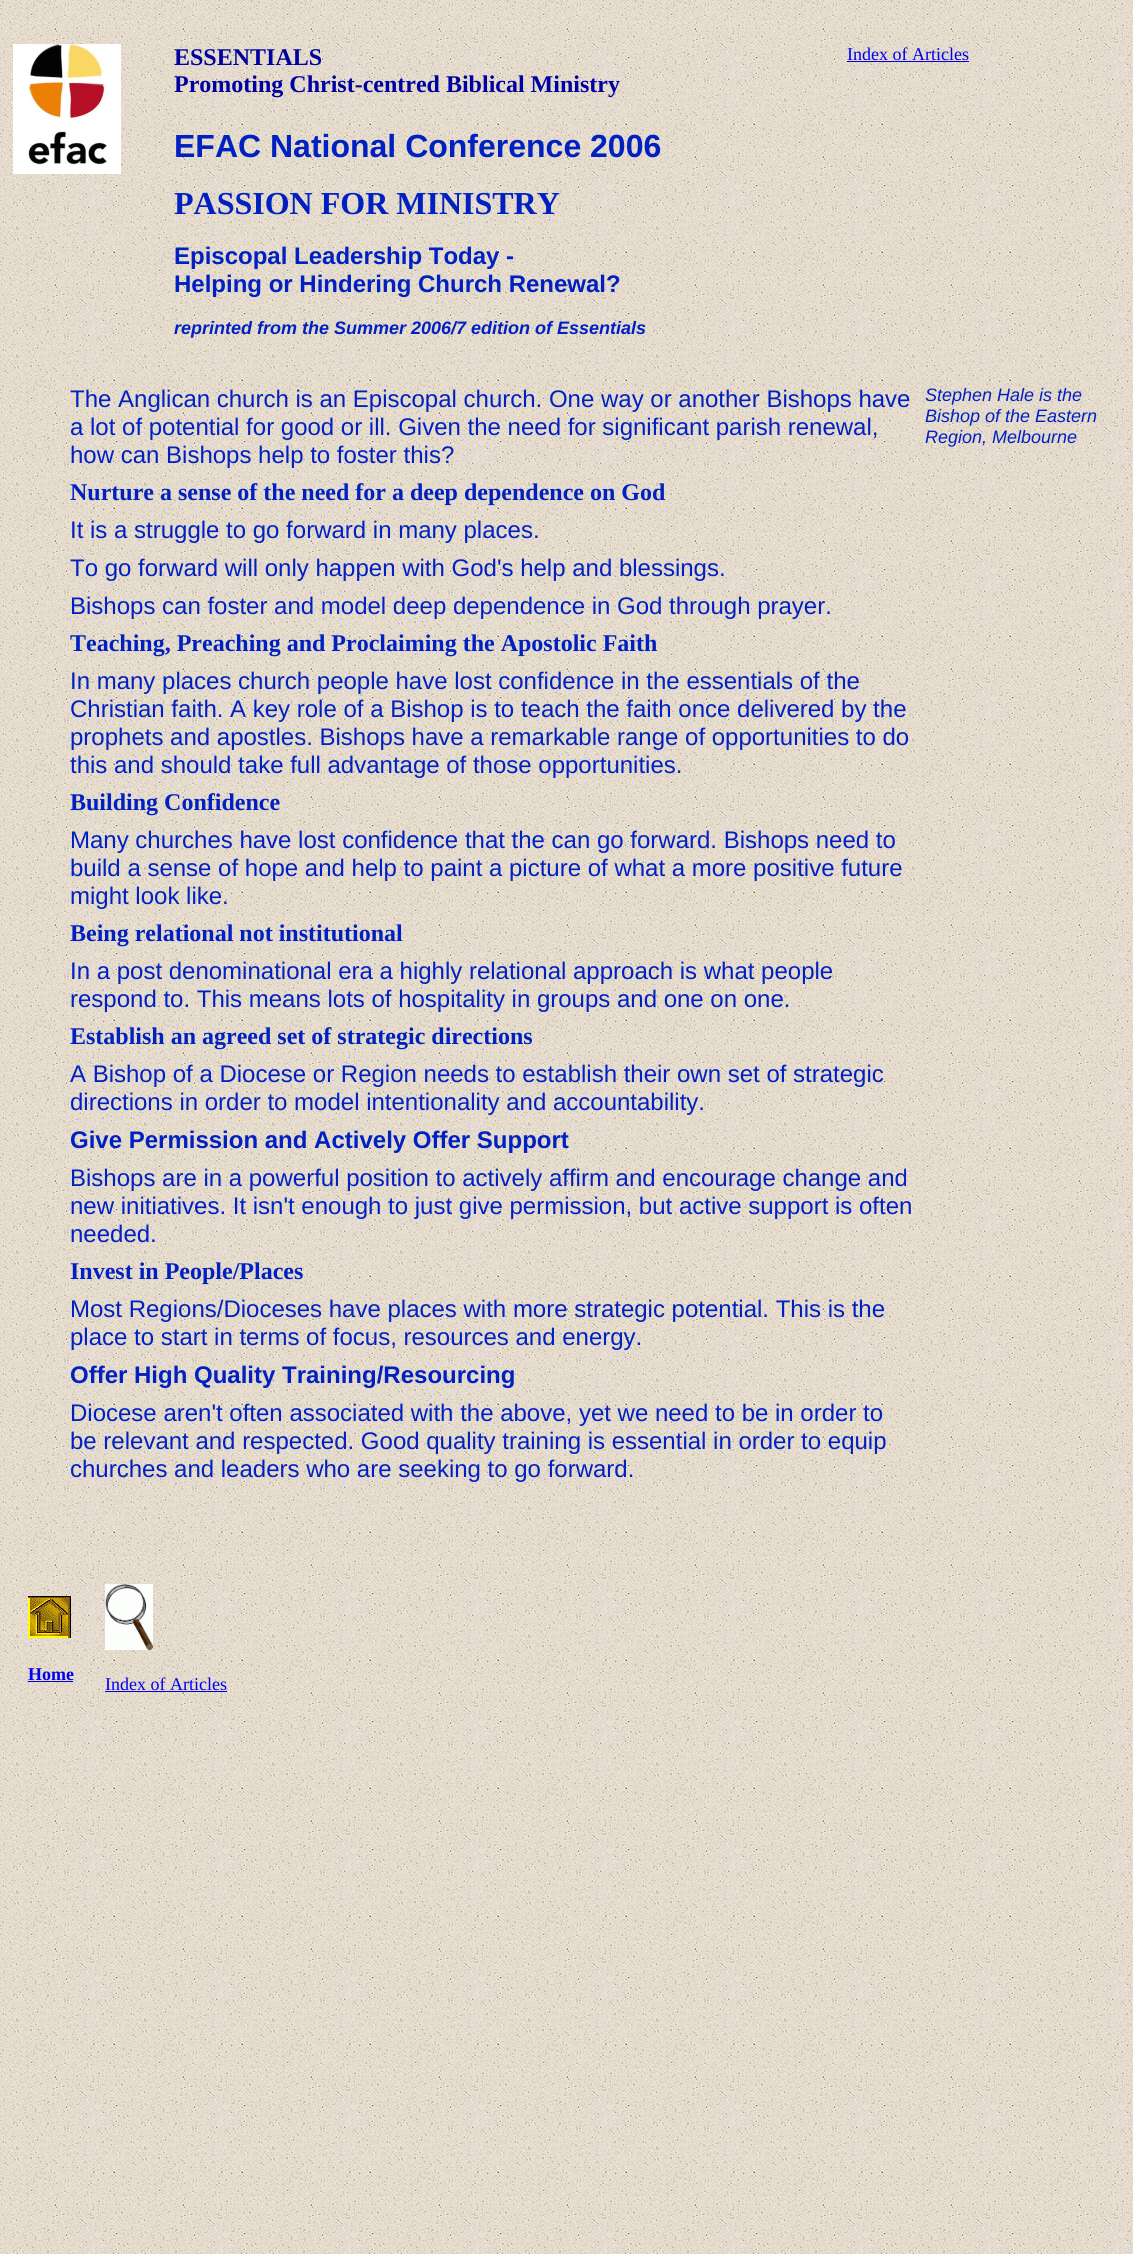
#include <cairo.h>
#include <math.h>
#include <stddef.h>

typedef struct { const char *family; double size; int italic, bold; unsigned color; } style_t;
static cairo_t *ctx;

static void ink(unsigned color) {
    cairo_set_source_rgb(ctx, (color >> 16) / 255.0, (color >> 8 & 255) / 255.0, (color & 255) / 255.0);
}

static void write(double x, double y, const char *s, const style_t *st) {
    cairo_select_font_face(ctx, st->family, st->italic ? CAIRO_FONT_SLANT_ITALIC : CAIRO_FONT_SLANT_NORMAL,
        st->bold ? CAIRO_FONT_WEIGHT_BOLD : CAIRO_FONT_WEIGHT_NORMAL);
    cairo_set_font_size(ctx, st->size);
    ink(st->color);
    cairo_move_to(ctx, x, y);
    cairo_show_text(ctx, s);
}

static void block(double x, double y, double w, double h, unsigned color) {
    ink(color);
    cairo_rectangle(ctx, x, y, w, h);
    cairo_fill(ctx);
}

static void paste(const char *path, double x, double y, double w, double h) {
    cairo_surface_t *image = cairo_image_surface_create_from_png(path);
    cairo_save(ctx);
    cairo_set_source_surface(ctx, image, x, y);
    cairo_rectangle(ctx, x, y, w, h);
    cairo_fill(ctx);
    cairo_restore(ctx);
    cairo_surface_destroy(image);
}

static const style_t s1 = {"Liberation Serif", 24, 0, 1, 0x0000a0};
static const style_t s2 = {"Liberation Serif", 18, 0, 0, 0x0000ee};
static const style_t s3 = {"Liberation Sans", 32, 0, 1, 0x0020c2};
static const style_t s4 = {"Liberation Serif", 32, 0, 1, 0x0020c2};
static const style_t s5 = {"Liberation Sans", 24, 0, 1, 0x0020c2};
static const style_t s6 = {"Liberation Sans", 18, 1, 1, 0x0020c2};
static const style_t s7 = {"Liberation Sans", 24, 0, 0, 0x0020c2};
static const style_t s8 = {"Liberation Sans", 18, 1, 0, 0x0020c2};
static const style_t s9 = {"Liberation Serif", 24, 0, 1, 0x0020c2};
static const style_t s10 = {"Liberation Serif", 18, 0, 1, 0x0000ee};

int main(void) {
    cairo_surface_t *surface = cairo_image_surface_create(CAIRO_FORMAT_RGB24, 1133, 2254);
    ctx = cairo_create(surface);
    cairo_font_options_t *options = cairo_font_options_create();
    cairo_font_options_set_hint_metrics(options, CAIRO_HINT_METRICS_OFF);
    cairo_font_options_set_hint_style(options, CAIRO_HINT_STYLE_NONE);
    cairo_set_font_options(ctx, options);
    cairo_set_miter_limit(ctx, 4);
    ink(0xffffff);
    cairo_paint(ctx);
    paste("pic1.png", 0, 0, 1133, 2254);
    paste("pic2.png", 13, 44, 108, 130);
    write(174, 65, "ESSENTIALS", &s1);
    write(174, 92, "Promoting Christ-centred Biblical Ministry", &s1);
    write(847, 60, "Index of Articles", &s2);
    block(847, 61, 122, 1, 0x0000ee);
    write(174, 157, "EFAC National Conference 2006", &s3);
    write(174, 214, "PASSION FOR MINISTRY", &s4);
    write(174, 264, "Episcopal Leadership Today -", &s5);
    write(174, 292, "Helping or Hindering Church Renewal?", &s5);
    write(174, 334, "reprinted from the Summer 2006/7 edition of Essentials", &s6);
    write(70, 407, "The Anglican church is an Episcopal church. One way or another Bishops have", &s7);
    write(70, 435, "a lot of potential for good or ill. Given the need for significant parish renewal,", &s7);
    write(70, 463, "how can Bishops help to foster this?", &s7);
    write(925, 401, "Stephen Hale is the", &s8);
    write(925, 422, "Bishop of the Eastern", &s8);
    write(925, 443, "Region, Melbourne", &s8);
    write(70, 500, "Nurture a sense of the need for a deep dependence on God", &s9);
    write(70, 538, "It is a struggle to go forward in many places.", &s7);
    write(70, 576, "To go forward will only happen with God's help and blessings.", &s7);
    write(70, 614, "Bishops can foster and model deep dependence in God through prayer.", &s7);
    write(70, 651, "Teaching, Preaching and Proclaiming the Apostolic Faith", &s9);
    write(70, 689, "In many places church people have lost confidence in the essentials of the", &s7);
    write(70, 717, "Christian faith. A key role of a Bishop is to teach the faith once delivered by the", &s7);
    write(70, 745, "prophets and apostles. Bishops have a remarkable range of opportunities to do", &s7);
    write(70, 773, "this and should take full advantage of those opportunities.", &s7);
    write(70, 810, "Building Confidence", &s9);
    write(70, 848, "Many churches have lost confidence that the can go forward. Bishops need to", &s7);
    write(70, 876, "build a sense of hope and help to paint a picture of what a more positive future", &s7);
    write(70, 904, "might look like.", &s7);
    write(70, 941, "Being relational not institutional", &s9);
    write(70, 979, "In a post denominational era a highly relational approach is what people", &s7);
    write(70, 1007, "respond to. This means lots of hospitality in groups and one on one.", &s7);
    write(70, 1044, "Establish an agreed set of strategic directions", &s9);
    write(70, 1082, "A Bishop of a Diocese or Region needs to establish their own set of strategic", &s7);
    write(70, 1110, "directions in order to model intentionality and accountability.", &s7);
    write(70, 1148, "Give Permission and Actively Offer Support", &s5);
    write(70, 1186, "Bishops are in a powerful position to actively affirm and encourage change and", &s7);
    write(70, 1214, "new initiatives. It isn't enough to just give permission, but active support is often", &s7);
    write(70, 1242, "needed.", &s7);
    write(70, 1279, "Invest in People/Places", &s9);
    write(70, 1317, "Most Regions/Dioceses have places with more strategic potential. This is the", &s7);
    write(70, 1345, "place to start in terms of focus, resources and energy.", &s7);
    write(70, 1383, "Offer High Quality Training/Resourcing", &s5);
    write(70, 1421, "Diocese aren't often associated with the above, yet we need to be in order to", &s7);
    write(70, 1449, "be relevant and respected. Good quality training is essential in order to equip", &s7);
    write(70, 1477, "churches and leaders who are seeking to go forward.", &s7);
    paste("pic3.png", 28, 1596, 43, 42);
    paste("pic4.png", 105, 1584, 48, 66);
    write(28, 1680, "Home", &s10);
    block(28, 1681, 45, 1, 0x0000ee);
    write(105, 1690, "Index of Articles", &s2);
    block(105, 1691, 122, 1, 0x0000ee);
    cairo_surface_write_to_png(surface, "screenshot.png");
    cairo_font_options_destroy(options);
    cairo_destroy(ctx);
    cairo_surface_destroy(surface);
    return 0;
}
